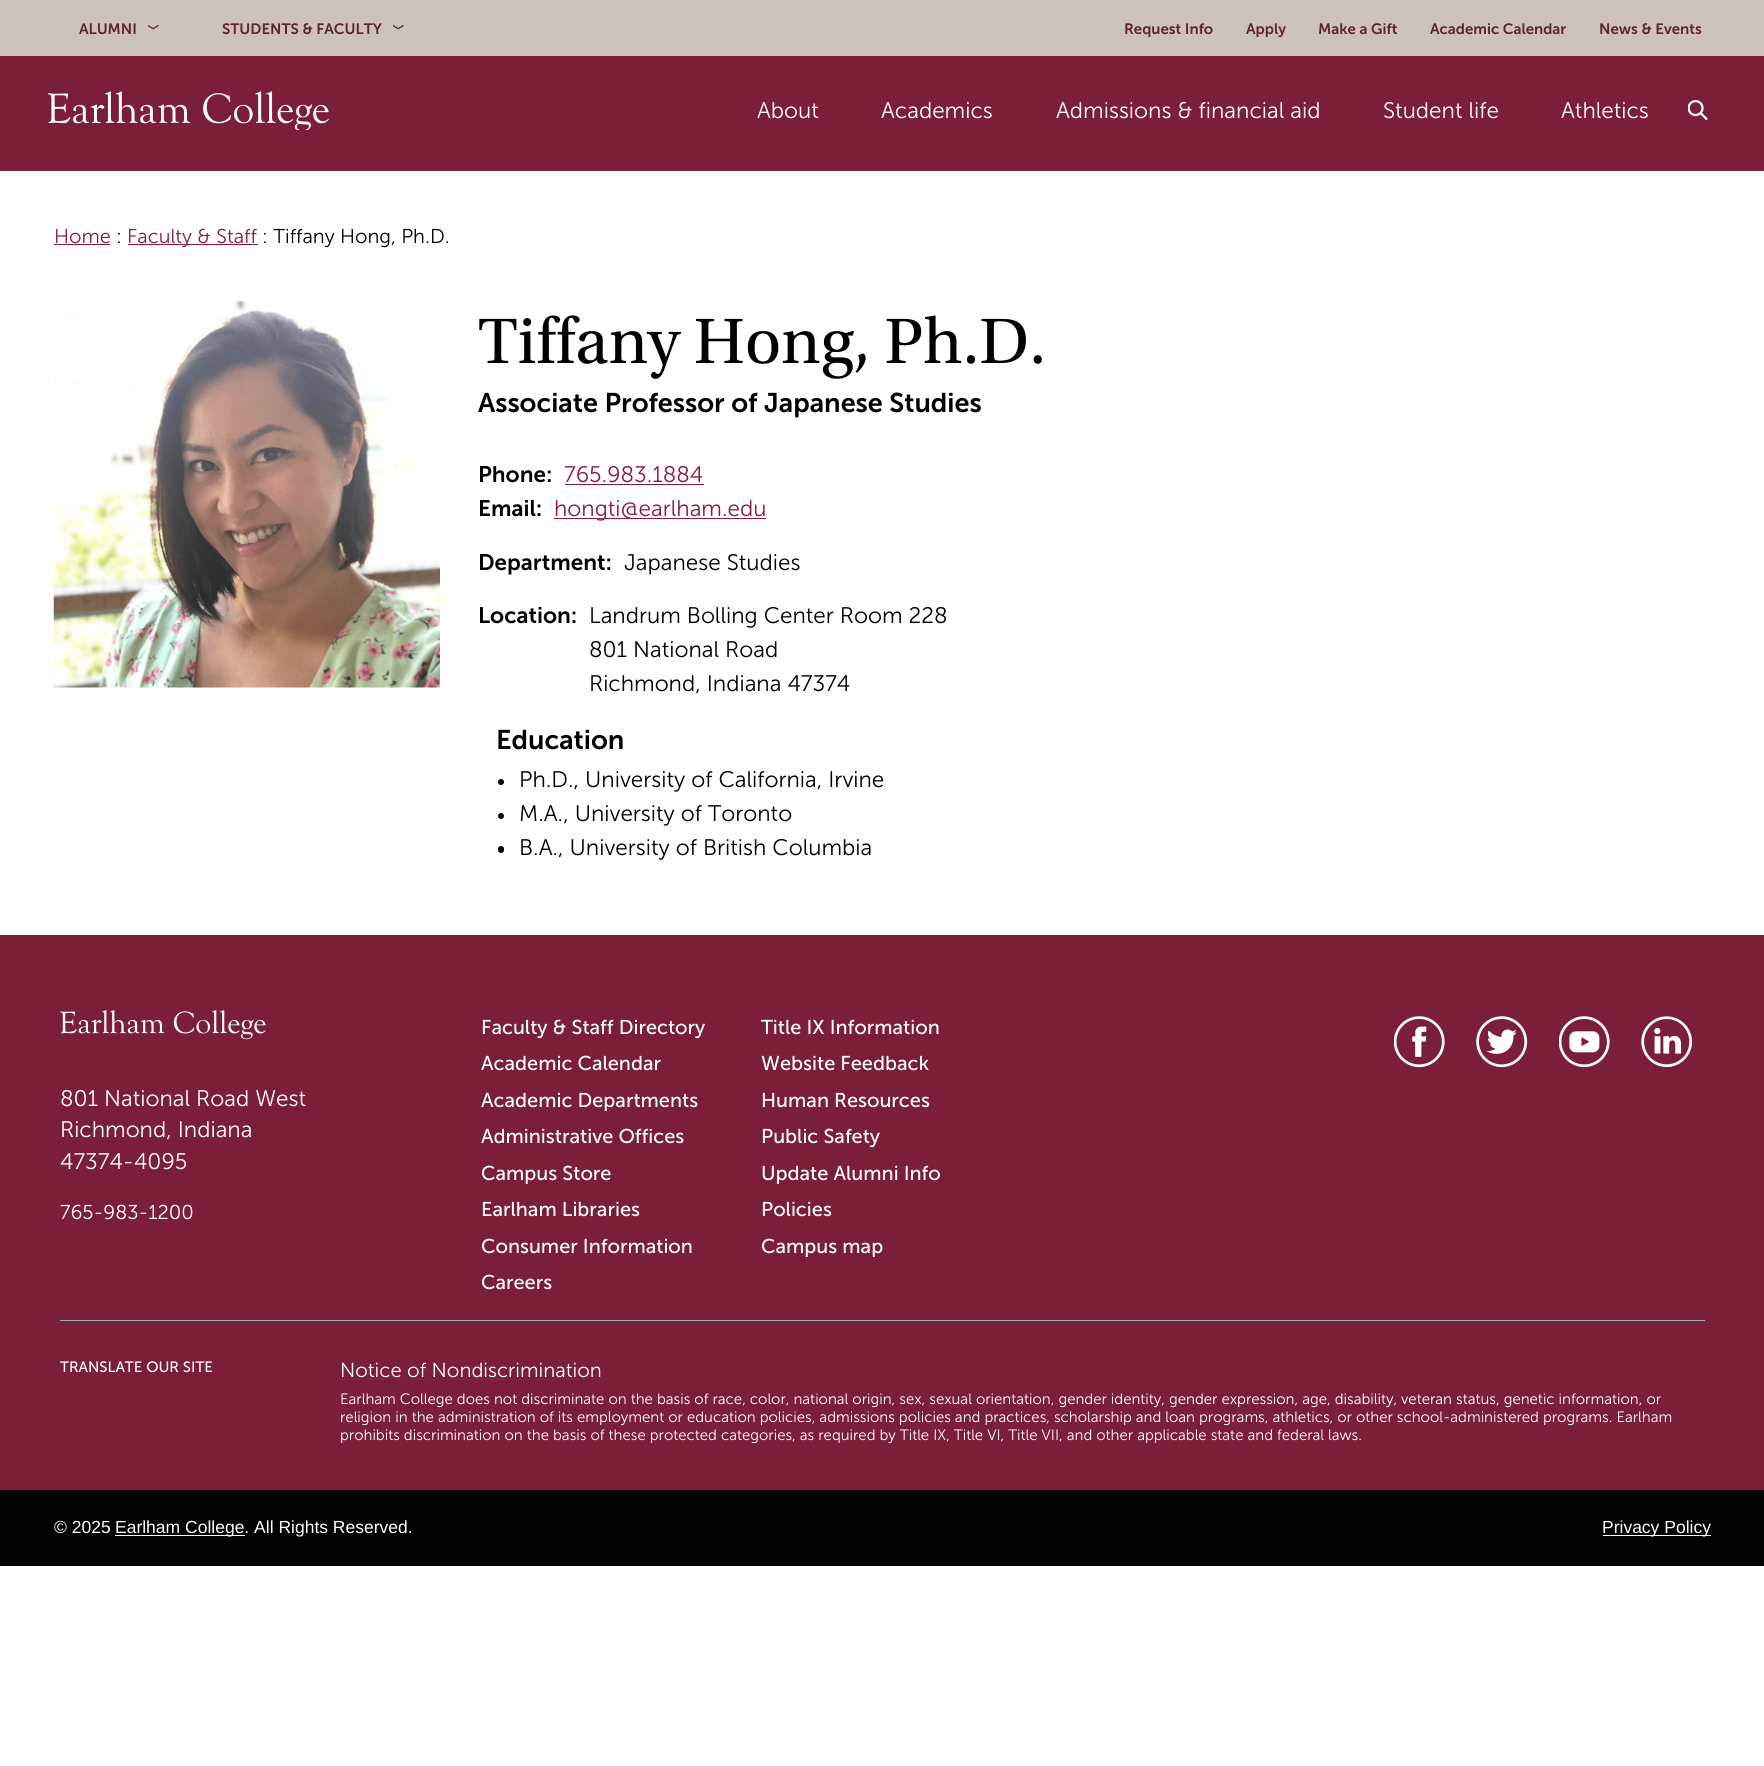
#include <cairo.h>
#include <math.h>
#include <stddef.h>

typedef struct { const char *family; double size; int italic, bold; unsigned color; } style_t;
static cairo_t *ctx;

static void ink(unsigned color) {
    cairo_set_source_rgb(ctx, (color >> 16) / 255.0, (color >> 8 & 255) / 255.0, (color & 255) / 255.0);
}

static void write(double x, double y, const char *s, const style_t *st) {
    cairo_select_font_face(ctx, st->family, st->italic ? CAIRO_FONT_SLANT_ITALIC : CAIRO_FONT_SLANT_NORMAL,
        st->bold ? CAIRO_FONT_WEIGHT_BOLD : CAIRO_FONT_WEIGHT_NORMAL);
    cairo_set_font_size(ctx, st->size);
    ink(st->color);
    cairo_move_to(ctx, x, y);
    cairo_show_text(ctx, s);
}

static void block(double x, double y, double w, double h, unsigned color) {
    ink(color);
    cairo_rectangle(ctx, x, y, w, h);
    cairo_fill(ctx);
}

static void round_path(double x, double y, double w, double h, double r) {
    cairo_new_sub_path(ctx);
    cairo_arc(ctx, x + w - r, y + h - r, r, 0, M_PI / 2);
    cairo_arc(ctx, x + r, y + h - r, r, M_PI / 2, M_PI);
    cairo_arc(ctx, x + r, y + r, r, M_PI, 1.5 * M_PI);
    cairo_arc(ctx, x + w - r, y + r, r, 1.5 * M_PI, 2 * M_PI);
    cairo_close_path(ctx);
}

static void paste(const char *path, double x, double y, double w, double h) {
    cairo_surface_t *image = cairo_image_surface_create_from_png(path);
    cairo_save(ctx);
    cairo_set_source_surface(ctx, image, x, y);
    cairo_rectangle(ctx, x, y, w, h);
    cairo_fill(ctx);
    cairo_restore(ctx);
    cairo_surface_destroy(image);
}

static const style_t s1 = {"Museo Sans SemiBold", 15, 0, 0, 0x602430};
static const style_t s2 = {"Museo Sans Light", 22.5, 0, 0, 0xffffff};
static const style_t s3 = {"Museo Sans Light", 20, 0, 0, 0x8b1b3f};
static const style_t s4 = {"Museo Sans Light", 20, 0, 0, 0x000000};
static const style_t s5 = {"Utopia", 67.5, 0, 0, 0x000000};
static const style_t s6 = {"Museo Sans SemiBold", 27, 0, 0, 0x000000};
static const style_t s7 = {"Museo Sans SemiBold", 22.5, 0, 0, 0x000000};
static const style_t s8 = {"Museo Sans Light", 22.5, 0, 0, 0x8b1b3f};
static const style_t s9 = {"Museo Sans Light", 22.5, 0, 0, 0x000000};
static const style_t s10 = {"Museo Sans Light", 20, 0, 0, 0xffffff};
static const style_t s11 = {"Museo Sans", 20, 0, 0, 0xffffff};
static const style_t s12 = {"Museo Sans", 15, 0, 0, 0xffffff};
static const style_t s13 = {"Museo Sans Light", 20.25, 0, 0, 0xffffff};
static const style_t s14 = {"Museo Sans Light", 15, 0, 0, 0xffffff};
static const style_t s15 = {"Liberation Sans", 17.5, 0, 0, 0xffffff};

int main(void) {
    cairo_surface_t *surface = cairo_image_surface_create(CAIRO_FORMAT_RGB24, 1764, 1766);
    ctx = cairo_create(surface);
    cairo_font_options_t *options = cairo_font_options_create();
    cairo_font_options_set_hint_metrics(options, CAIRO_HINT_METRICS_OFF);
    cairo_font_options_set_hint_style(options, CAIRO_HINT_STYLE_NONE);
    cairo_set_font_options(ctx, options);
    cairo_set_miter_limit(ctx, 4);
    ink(0xffffff);
    cairo_paint(ctx);
    block(0, 0, 1764, 56, 0xcdc2bc);
    write(79, 34, "ALUMNI", &s1);
    paste("pic1.png", 148, 25, 11, 5);
    write(222, 34, "STUDENTS & FACULTY", &s1);
    paste("pic1.png", 393, 25, 11, 5);
    write(1124, 34, "Request Info", &s1);
    write(1246, 34, "Apply", &s1);
    write(1318, 34, "Make a Gift", &s1);
    write(1430, 34, "Academic Calendar", &s1);
    write(1599, 34, "News & Events", &s1);
    block(0, 56, 1764, 115, 0x7b1f38);
    paste("pic2.png", 48, 91, 281, 39);
    write(757, 118, "About", &s2);
    write(881, 118, "Academics", &s2);
    write(1056, 118, "Admissions & financial aid", &s2);
    write(1383, 118, "Student life", &s2);
    write(1561, 118, "Athletics", &s2);
    paste("pic3.png", 1688, 100, 20, 21);
    write(54, 243, "Home", &s3);
    block(54, 244, 56, 1, 0x8b1b3f);
    write(116, 243, ":", &s4);
    block(128, 244, 130, 1, 0x8b1b3f);
    write(127, 243, "Faculty & Staff", &s3);
    write(262, 243, ": Tiffany Hong, Ph.D.", &s4);
    paste("pic4.png", 53, 301, 387, 387);
    write(478, 363, "Tiffany Hong, Ph.D.", &s5);
    write(478, 412, "Associate Professor of Japanese Studies", &s6);
    write(478, 482, "Phone:", &s7);
    write(564, 482, "765.983.1884", &s8);
    block(565, 484, 139, 1, 0x8b1b3f);
    write(478, 516, "Email:", &s7);
    block(554, 518, 212, 1, 0x8b1b3f);
    write(554, 516, "hongti@earlham.edu", &s8);
    write(478, 570, "Department:", &s7);
    write(624, 570, "Japanese Studies", &s9);
    write(478, 623, "Location:", &s7);
    write(589, 623, "Landrum Bolling Center Room 228", &s9);
    write(589, 657, "801 National Road", &s9);
    write(589, 691, "Richmond, Indiana 47374", &s9);
    write(496, 749, "Education", &s6);
    cairo_new_path(ctx);
    cairo_arc(ctx, 501, 782, 3, 0, 2 * M_PI);
    cairo_fill(ctx);
    write(519, 787, "Ph.D., University of California, Irvine", &s9);
    cairo_new_path(ctx);
    cairo_arc(ctx, 501, 816, 3, 0, 2 * M_PI);
    cairo_fill(ctx);
    write(519, 821, "M.A., University of Toronto", &s9);
    round_path(498, 846, 6, 7, 3);
    cairo_fill(ctx);
    write(519, 855, "B.A., University of British Columbia", &s9);
    block(0, 935, 1764, 555, 0x7b1f38);
    paste("pic5.png", 60, 1010, 206, 30);
    write(60, 1106, "801 National Road West", &s2);
    write(60, 1137, "Richmond, Indiana", &s2);
    write(60, 1169, "47374-4095", &s2);
    write(60, 1219, "765-983-1200", &s10);
    write(481, 1034, "Faculty & Staff Directory", &s11);
    write(481, 1070, "Academic Calendar", &s11);
    write(481, 1107, "Academic Departments", &s11);
    write(481, 1143, "Administrative Offices", &s11);
    write(481, 1180, "Campus Store", &s11);
    write(481, 1216, "Earlham Libraries", &s11);
    write(481, 1253, "Consumer Information", &s11);
    write(481, 1289, "Careers", &s11);
    write(761, 1034, "Title IX Information", &s11);
    write(761, 1070, "Website Feedback", &s11);
    write(761, 1107, "Human Resources", &s11);
    write(761, 1143, "Public Safety", &s11);
    write(761, 1180, "Update Alumni Info", &s11);
    write(761, 1216, "Policies", &s11);
    write(761, 1253, "Campus map", &s11);
    paste("pic6.png", 1394, 1016, 51, 52);
    paste("pic7.png", 1476, 1016, 52, 52);
    paste("pic8.png", 1559, 1016, 51, 52);
    paste("pic9.png", 1641, 1016, 51, 51);
    block(60, 1320, 1645, 1, 0xadadad);
    write(60, 1372, "TRANSLATE OUR SITE", &s12);
    write(340, 1377, "Notice of Nondiscrimination", &s13);
    block(340, 1379, 263, 1, 0x8b1b3f);
    write(340, 1404, "Earlham College does not discriminate on the basis of race, color, national origin, sex, sexual orientation, gender identity, gender expression, age, disability, veteran status, genetic information, or", &s14);
    write(340, 1422, "religion in the administration of its employment or education policies, admissions policies and practices, scholarship and loan programs, athletics, or other school-administered programs. Earlham", &s14);
    write(340, 1440, "prohibits discrimination on the basis of these protected categories, as required by Title IX, Title VI, Title VII, and other applicable state and federal laws.", &s14);
    block(0, 1490, 1764, 76, 0x000000);
    write(54, 1533, "© 2025", &s15);
    block(115, 1535, 130, 1, 0xffffff);
    write(115, 1533, "Earlham College. All Rights Reserved.", &s15);
    block(1603, 1535, 108, 1, 0xffffff);
    write(1602, 1533, "Privacy Policy", &s15);
    cairo_surface_write_to_png(surface, "screenshot.png");
    cairo_font_options_destroy(options);
    cairo_destroy(ctx);
    cairo_surface_destroy(surface);
    return 0;
}
